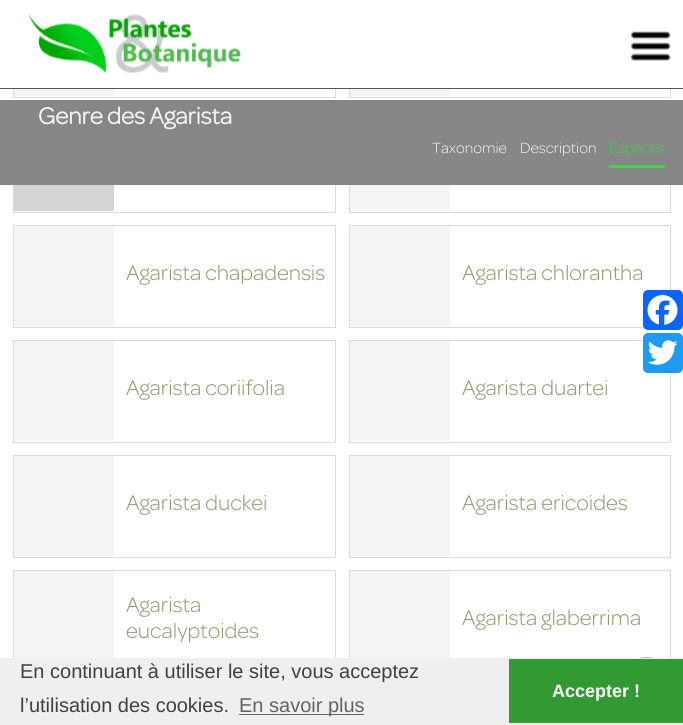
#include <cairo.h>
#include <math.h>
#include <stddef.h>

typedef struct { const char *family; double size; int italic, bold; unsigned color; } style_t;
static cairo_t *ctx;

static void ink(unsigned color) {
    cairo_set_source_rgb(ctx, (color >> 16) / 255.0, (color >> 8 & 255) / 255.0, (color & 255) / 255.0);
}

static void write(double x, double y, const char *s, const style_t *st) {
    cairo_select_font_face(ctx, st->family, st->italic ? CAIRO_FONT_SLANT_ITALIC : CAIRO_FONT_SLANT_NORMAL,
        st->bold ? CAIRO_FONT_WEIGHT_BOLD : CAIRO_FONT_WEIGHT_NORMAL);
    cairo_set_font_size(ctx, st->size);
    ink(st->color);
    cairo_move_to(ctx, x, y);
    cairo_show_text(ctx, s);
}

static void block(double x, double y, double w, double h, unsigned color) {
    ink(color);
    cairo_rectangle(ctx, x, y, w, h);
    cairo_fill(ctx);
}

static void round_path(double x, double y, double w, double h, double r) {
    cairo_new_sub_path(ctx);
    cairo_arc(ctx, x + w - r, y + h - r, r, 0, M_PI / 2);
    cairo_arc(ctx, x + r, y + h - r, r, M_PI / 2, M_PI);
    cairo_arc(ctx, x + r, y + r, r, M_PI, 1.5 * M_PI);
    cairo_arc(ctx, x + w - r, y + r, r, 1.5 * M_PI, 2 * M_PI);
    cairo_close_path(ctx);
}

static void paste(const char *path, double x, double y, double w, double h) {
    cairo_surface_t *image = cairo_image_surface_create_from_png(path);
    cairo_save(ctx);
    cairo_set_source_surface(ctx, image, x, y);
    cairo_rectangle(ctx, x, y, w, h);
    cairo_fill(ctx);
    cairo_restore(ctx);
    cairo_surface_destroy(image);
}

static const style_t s1 = {"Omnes", 24.75, 0, 1, 0xf4f4f4};
static const style_t s2 = {"Omnes Light", 15.75, 0, 0, 0xf4f4f4};
static const style_t s3 = {"Omnes Light", 15.75, 0, 0, 0x49ce53};
static const style_t s4 = {"Omnes Light", 22.5, 0, 0, 0x8b996b};
static const style_t s5 = {"Liberation Sans", 20, 0, 0, 0x404040};
static const style_t s6 = {"Liberation Sans", 20, 0, 0, 0x636363};
static const style_t s7 = {"Liberation Sans", 18, 0, 1, 0xffffff};

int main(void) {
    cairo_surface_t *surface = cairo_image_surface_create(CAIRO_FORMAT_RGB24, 683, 725);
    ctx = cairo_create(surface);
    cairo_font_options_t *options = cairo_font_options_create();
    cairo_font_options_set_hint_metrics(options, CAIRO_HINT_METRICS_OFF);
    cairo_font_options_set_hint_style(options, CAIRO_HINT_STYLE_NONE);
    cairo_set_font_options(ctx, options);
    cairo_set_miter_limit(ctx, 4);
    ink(0xffffff);
    cairo_paint(ctx);
    cairo_rectangle(ctx, 13.5, -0.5, 322, 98);
    ink(0xdbdbdb);
    cairo_set_line_width(ctx, 1);
    cairo_stroke(ctx);
    cairo_rectangle(ctx, 349.5, -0.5, 321, 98);
    cairo_stroke(ctx);
    block(13, 0, 658, 88, 0xffffff);
    block(0, 88, 683, 1, 0x555555);
    paste("pic1.png", 28, 13, 213, 60);
    paste("pic2.png", 631, 30, 40, 31);
    cairo_rectangle(ctx, 13.5, 110.5, 322, 102);
    ink(0xdbdbdb);
    cairo_stroke(ctx);
    cairo_rectangle(ctx, 349.5, 110.5, 321, 102);
    cairo_stroke(ctx);
    block(0, 100, 683, 85, 0x868686);
    write(38, 124, "Genre des Agarista", &s1);
    write(432, 153, "Taxonomie", &s2);
    write(520, 153, "Description", &s2);
    block(609, 165, 56, 3, 0x49ce53);
    write(609, 153, "Espèces", &s3);
    block(14, 89, 100, 7, 0xf4f4f4);
    block(350, 89, 100, 7, 0xf4f4f4);
    block(14, 185, 100, 26, 0xd4d4d4);
    block(350, 185, 100, 26, 0xf4f4f4);
    cairo_rectangle(ctx, 13.5, 225.5, 322, 102);
    ink(0xdbdbdb);
    cairo_stroke(ctx);
    block(14, 226, 100, 100, 0xf4f4f4);
    write(126, 280, "Agarista chapadensis", &s4);
    cairo_rectangle(ctx, 349.5, 225.5, 321, 102);
    ink(0xdbdbdb);
    cairo_stroke(ctx);
    block(350, 226, 100, 100, 0xf4f4f4);
    write(462, 280, "Agarista chlorantha", &s4);
    cairo_rectangle(ctx, 13.5, 340.5, 322, 102);
    ink(0xdbdbdb);
    cairo_stroke(ctx);
    block(14, 341, 100, 100, 0xf4f4f4);
    write(126, 395, "Agarista coriifolia", &s4);
    cairo_rectangle(ctx, 349.5, 340.5, 321, 102);
    ink(0xdbdbdb);
    cairo_stroke(ctx);
    block(350, 341, 100, 100, 0xf4f4f4);
    write(462, 395, "Agarista duartei", &s4);
    cairo_rectangle(ctx, 13.5, 455.5, 322, 102);
    ink(0xdbdbdb);
    cairo_stroke(ctx);
    block(14, 456, 100, 100, 0xf4f4f4);
    write(126, 510, "Agarista duckei", &s4);
    cairo_rectangle(ctx, 349.5, 455.5, 321, 102);
    ink(0xdbdbdb);
    cairo_stroke(ctx);
    block(350, 456, 100, 100, 0xf4f4f4);
    write(462, 510, "Agarista ericoides", &s4);
    cairo_rectangle(ctx, 13.5, 570.5, 322, 102);
    ink(0xdbdbdb);
    cairo_stroke(ctx);
    block(14, 571, 100, 87, 0xf4f4f4);
    write(126, 612, "Agarista", &s4);
    write(126, 638, "eucalyptoides", &s4);
    cairo_rectangle(ctx, 349.5, 570.5, 321, 102);
    ink(0xdbdbdb);
    cairo_stroke(ctx);
    block(350, 571, 100, 87, 0xf4f4f4);
    write(462, 625, "Agarista glaberrima", &s4);
    ink(0x0866ff);
    round_path(643, 290, 40, 40, 5);
    cairo_fill(ctx);
    paste("pic3.png", 647, 295, 31, 30);
    ink(0x1d9bf0);
    round_path(643, 333, 40, 40, 5);
    cairo_fill(ctx);
    paste("pic4.png", 647, 340, 31, 25);
    paste("pic5.png", 639, 657, 15, 1);
    block(0, 658, 683, 67, 0xefefef);
    write(20, 678, "En continuant à utiliser le site, vous acceptez", &s5);
    write(20, 712, "l’utilisation des cookies.", &s5);
    block(239, 714, 125, 1, 0x636363);
    write(239, 712, "En savoir plus", &s6);
    block(509, 659, 174, 64, 0x339933);
    write(552, 697, "Accepter !", &s7);
    cairo_surface_write_to_png(surface, "screenshot.png");
    cairo_font_options_destroy(options);
    cairo_destroy(ctx);
    cairo_surface_destroy(surface);
    return 0;
}
